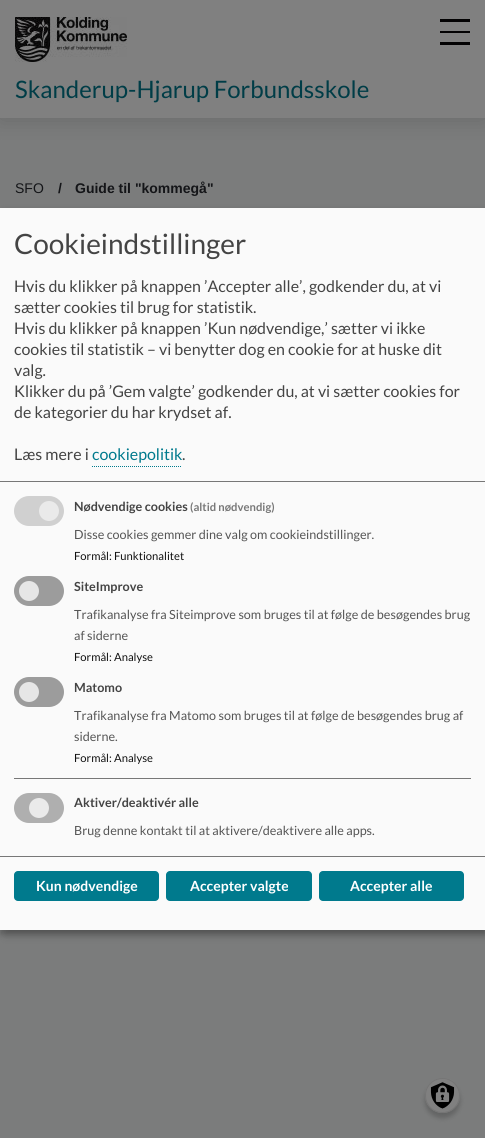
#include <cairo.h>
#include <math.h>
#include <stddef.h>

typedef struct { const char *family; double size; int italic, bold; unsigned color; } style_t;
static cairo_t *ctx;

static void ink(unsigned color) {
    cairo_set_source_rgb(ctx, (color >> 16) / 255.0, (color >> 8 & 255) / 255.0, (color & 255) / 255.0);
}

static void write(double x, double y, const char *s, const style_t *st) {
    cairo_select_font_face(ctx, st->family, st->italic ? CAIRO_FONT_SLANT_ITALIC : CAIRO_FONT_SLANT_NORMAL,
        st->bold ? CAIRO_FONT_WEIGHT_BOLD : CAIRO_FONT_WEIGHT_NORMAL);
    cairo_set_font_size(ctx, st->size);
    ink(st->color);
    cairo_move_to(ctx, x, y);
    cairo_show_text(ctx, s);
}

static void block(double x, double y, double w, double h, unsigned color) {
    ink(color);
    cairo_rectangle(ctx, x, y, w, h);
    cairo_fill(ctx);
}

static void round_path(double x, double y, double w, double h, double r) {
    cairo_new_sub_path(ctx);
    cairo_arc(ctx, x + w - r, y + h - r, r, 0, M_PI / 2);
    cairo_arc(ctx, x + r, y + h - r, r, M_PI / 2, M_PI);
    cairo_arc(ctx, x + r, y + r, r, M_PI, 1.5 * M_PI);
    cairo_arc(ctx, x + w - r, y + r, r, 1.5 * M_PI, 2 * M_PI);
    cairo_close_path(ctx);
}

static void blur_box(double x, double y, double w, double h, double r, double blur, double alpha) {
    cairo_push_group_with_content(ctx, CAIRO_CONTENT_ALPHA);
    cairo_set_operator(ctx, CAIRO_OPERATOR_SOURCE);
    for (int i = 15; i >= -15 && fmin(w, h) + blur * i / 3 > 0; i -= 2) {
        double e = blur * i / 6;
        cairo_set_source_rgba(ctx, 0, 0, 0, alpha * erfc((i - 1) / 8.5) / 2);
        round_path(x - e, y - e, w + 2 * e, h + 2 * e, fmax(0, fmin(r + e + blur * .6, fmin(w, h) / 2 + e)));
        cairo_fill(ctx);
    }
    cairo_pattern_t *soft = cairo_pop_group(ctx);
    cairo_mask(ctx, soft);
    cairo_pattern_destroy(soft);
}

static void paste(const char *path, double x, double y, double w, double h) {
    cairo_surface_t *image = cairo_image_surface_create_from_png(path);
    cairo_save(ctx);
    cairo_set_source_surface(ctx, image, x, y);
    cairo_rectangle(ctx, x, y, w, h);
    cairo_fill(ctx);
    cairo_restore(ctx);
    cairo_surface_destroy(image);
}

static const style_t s1 = {"Lato", 24, 0, 0, 0x003d47};
static const style_t s2 = {"Liberation Sans", 14, 0, 0, 0x141518};
static const style_t s3 = {"Liberation Sans", 14, 0, 1, 0x141518};
static const style_t s4 = {"Lato", 28, 0, 0, 0x444444};
static const style_t s5 = {"Lato", 16, 0, 0, 0x444444};
static const style_t s6 = {"Lato", 16, 0, 0, 0x007a8d};
static const style_t s7 = {"Lato", 12.6, 0, 1, 0x444444};
static const style_t s8 = {"Lato", 11.25, 0, 1, 0x777777};
static const style_t s9 = {"Lato", 12.6, 0, 0, 0x555555};
static const style_t s10 = {"Lato", 11.25, 0, 0, 0x111111};
static const style_t s11 = {"Lato", 14, 0, 1, 0xffffff};

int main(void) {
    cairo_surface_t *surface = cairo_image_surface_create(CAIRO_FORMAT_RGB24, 485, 1138);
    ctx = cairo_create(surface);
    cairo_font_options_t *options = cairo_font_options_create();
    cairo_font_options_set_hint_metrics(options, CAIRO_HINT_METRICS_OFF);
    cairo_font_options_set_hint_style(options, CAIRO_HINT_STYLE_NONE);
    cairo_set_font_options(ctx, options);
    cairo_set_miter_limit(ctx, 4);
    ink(0x7b7c7c);
    cairo_paint(ctx);
    ink(0x1a1a1a);
    blur_box(0, 2, 485, 118, 0, 11, 0.2);
    block(0, 0, 485, 118, 0x808080);
    block(440, 42, 30, 3, 0x030203);
    block(440, 31, 30, 2, 0x030203);
    block(440, 19, 30, 3, 0x030203);
    paste("pic1.png", 15, 17, 112, 45);
    write(15, 98, "Skanderup-Hjarup Forbundsskole", &s1);
    write(15, 193, "SFO", &s2);
    write(58, 193, "/", &s3);
    write(75, 193, "Guide til \"kommegå\"", &s3);
    ink(0x000000);
    blur_box(5, 213, 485, 722, 0, 5, 0.19);
    blur_box(0, 212, 485, 722, 0, 3, 0.2);
    block(0, 208, 485, 722, 0xfafafa);
    block(0, 481, 485, 1, 0x777777);
    write(14, 254, "Cookieindstillinger", &s4);
    write(14, 292, "Hvis du klikker på knappen ’Accepter alle’, godkender du, at vi", &s5);
    write(14, 313, "sætter cookies til brug for statistik.", &s5);
    write(14, 334, "Hvis du klikker på knappen ’Kun nødvendige,’ sætter vi ikke", &s5);
    write(14, 355, "cookies til statistik – vi benytter dog en cookie for at huske dit", &s5);
    write(14, 376, "valg.", &s5);
    write(14, 397, "Klikker du på ’Gem valgte’ godkender du, at vi sætter cookies for", &s5);
    write(14, 418, "de kategorier du har krydset af.", &s5);
    write(14, 460, "Læs mere i", &s5);
    cairo_new_path(ctx);
    cairo_move_to(ctx, 92, 466.5);
    cairo_line_to(ctx, 182, 466.5);
    ink(0x007a8d);
    cairo_set_line_width(ctx, 1);
    cairo_set_dash(ctx, (double[]){1, 1}, 2, 0);
    cairo_stroke(ctx);
    write(92, 460, "cookiepolitik", &s6);
    write(182, 460, ".", &s5);
    ink(0xd0d0d0);
    round_path(14, 496, 50, 30, 15);
    cairo_fill(ctx);
    ink(0xeaeaea);
    cairo_arc(ctx, 49, 511, 10, 0, 2 * M_PI);
    cairo_fill(ctx);
    write(74, 511, "Nødvendige cookies", &s7);
    write(190, 511, "(altid nødvendig)", &s8);
    write(74, 539, "Disse cookies gemmer dine valg om cookieindstillinger.", &s9);
    write(74, 560, "Formål: Funktionalitet", &s10);
    ink(0x9c9c9c);
    round_path(14, 576, 50, 30, 15);
    cairo_fill(ctx);
    ink(0xe6e6e6);
    cairo_arc(ctx, 29, 591, 10, 0, 2 * M_PI);
    cairo_fill(ctx);
    write(74, 591, "SiteImprove", &s7);
    write(74, 619, "Trafikanalyse fra Siteimprove som bruges til at følge de besøgendes brug", &s9);
    write(74, 640, "af siderne", &s9);
    write(74, 661, "Formål: Analyse", &s10);
    ink(0x9c9c9c);
    round_path(14, 677, 50, 30, 15);
    cairo_fill(ctx);
    ink(0xe6e6e6);
    cairo_arc(ctx, 29, 692, 10, 0, 2 * M_PI);
    cairo_fill(ctx);
    write(74, 692, "Matomo", &s7);
    write(74, 720, "Trafikanalyse fra Matomo som bruges til at følge de besøgendes brug af", &s9);
    write(74, 741, "siderne.", &s9);
    write(74, 762, "Formål: Analyse", &s10);
    block(14, 778, 457, 1, 0x777777);
    ink(0xafafaf);
    round_path(14, 793, 50, 30, 15);
    cairo_fill(ctx);
    ink(0xeaeaea);
    cairo_arc(ctx, 39, 808, 10, 0, 2 * M_PI);
    cairo_fill(ctx);
    write(74, 807, "Aktiver/deaktivér alle", &s7);
    write(74, 835, "Brug denne kontakt til at aktivere/deaktivere alle apps.", &s9);
    block(0, 856, 485, 1, 0x777777);
    ink(0x007a8d);
    round_path(14, 871, 145, 30, 4);
    cairo_fill(ctx);
    write(36, 891, "Kun nødvendige", &s11);
    ink(0x007a8d);
    round_path(166, 871, 146, 30, 4);
    cairo_fill(ctx);
    write(190, 891, "Accepter valgte", &s11);
    ink(0x007a8d);
    round_path(319, 871, 145, 30, 4);
    cairo_fill(ctx);
    write(350, 891, "Accepter alle", &s11);
    ink(0x000000);
    blur_box(425, 1083, 35, 35, 17.5, 2.5, 0.2);
    ink(0x808080);
    cairo_arc(ctx, 442.5, 1095.5, 17.5, 0, 2 * M_PI);
    cairo_fill(ctx);
    paste("pic2.png", 430, 1082, 25, 27);
    cairo_arc(ctx, 442.5, 1095.5, 17, 0, 2 * M_PI);
    ink(0x757575);
    cairo_set_dash(ctx, NULL, 0, 0);
    cairo_stroke(ctx);
    cairo_surface_write_to_png(surface, "screenshot.png");
    cairo_font_options_destroy(options);
    cairo_destroy(ctx);
    cairo_surface_destroy(surface);
    return 0;
}
